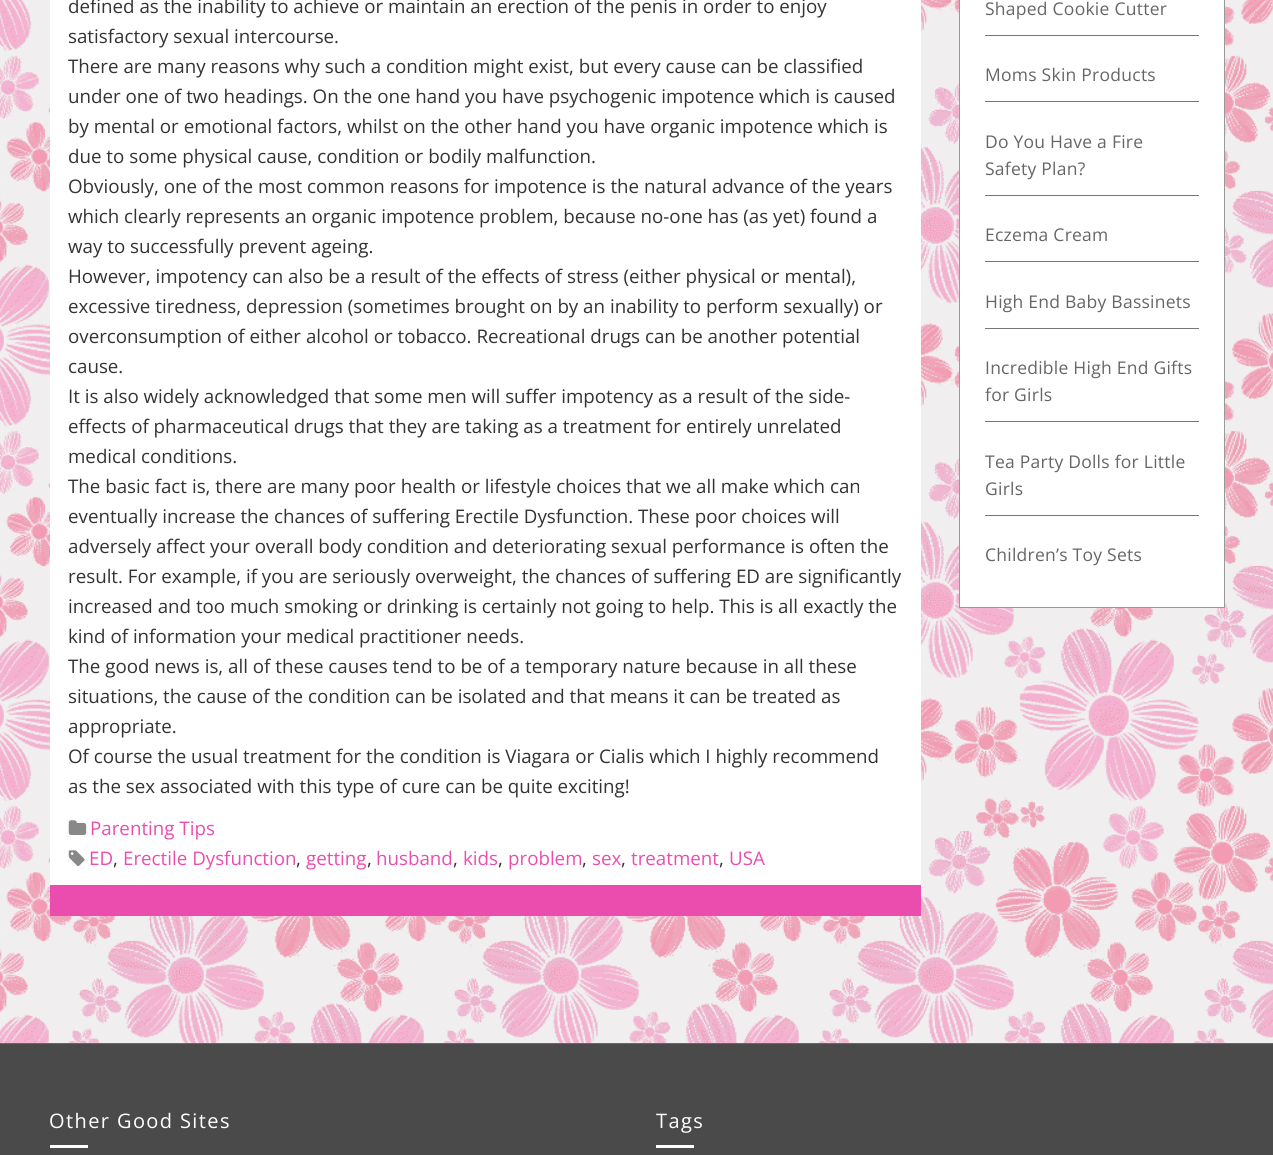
#include <cairo.h>
#include <math.h>
#include <stddef.h>

typedef struct { const char *family; double size; int italic, bold; unsigned color; } style_t;
static cairo_t *ctx;

static void ink(unsigned color) {
    cairo_set_source_rgb(ctx, (color >> 16) / 255.0, (color >> 8 & 255) / 255.0, (color & 255) / 255.0);
}

static void write(double x, double y, const char *s, const style_t *st) {
    cairo_select_font_face(ctx, st->family, st->italic ? CAIRO_FONT_SLANT_ITALIC : CAIRO_FONT_SLANT_NORMAL,
        st->bold ? CAIRO_FONT_WEIGHT_BOLD : CAIRO_FONT_WEIGHT_NORMAL);
    cairo_set_font_size(ctx, st->size);
    ink(st->color);
    cairo_move_to(ctx, x, y);
    cairo_show_text(ctx, s);
}

static void write_spaced(double x, double y, const char *s, double letter, double word) {
    cairo_move_to(ctx, x, y);
    while (*s) {
        char ch[5] = {0};
        int n = 0;
        do ch[n++] = *s++; while ((*s & 0xC0) == 0x80);
        cairo_show_text(ctx, ch);
        cairo_rel_move_to(ctx, letter + word * (*ch == ' '), 0);
    }
}

static void block(double x, double y, double w, double h, unsigned color) {
    ink(color);
    cairo_rectangle(ctx, x, y, w, h);
    cairo_fill(ctx);
}

static void paste(const char *path, double x, double y, double w, double h) {
    cairo_surface_t *image = cairo_image_surface_create_from_png(path);
    cairo_save(ctx);
    cairo_set_source_surface(ctx, image, x, y);
    cairo_rectangle(ctx, x, y, w, h);
    cairo_fill(ctx);
    cairo_restore(ctx);
    cairo_surface_destroy(image);
}

static const style_t s1 = {"Open Sans", 18.75, 0, 0, 0x333333};
static const style_t s2 = {"Open Sans", 18.75, 0, 0, 0xeb4daf};

int main(void) {
    cairo_surface_t *surface = cairo_image_surface_create(CAIRO_FORMAT_RGB24, 1273, 1155);
    ctx = cairo_create(surface);
    cairo_font_options_t *options = cairo_font_options_create();
    cairo_font_options_set_hint_metrics(options, CAIRO_HINT_METRICS_OFF);
    cairo_font_options_set_hint_style(options, CAIRO_HINT_STYLE_NONE);
    cairo_set_font_options(ctx, options);
    cairo_set_miter_limit(ctx, 4);
    ink(0xffffff);
    cairo_paint(ctx);
    paste("pic1.png", 0, 0, 1273, 1043);
    block(50, 0, 871, 885, 0xffffff);
    block(50, 885, 871, 31, 0xeb4daf);
    write(68, 13, "defined as the inability to achieve or maintain an erection of the penis in order to enjoy", &s1);
    write(68, 43, "satisfactory sexual intercourse.", &s1);
    write(68, 73, "There are many reasons why such a condition might exist, but every cause can be classified", &s1);
    write(68, 103, "under one of two headings. On the one hand you have psychogenic impotence which is caused", &s1);
    write(68, 133, "by mental or emotional factors, whilst on the other hand you have organic impotence which is", &s1);
    write(68, 163, "due to some physical cause, condition or bodily malfunction.", &s1);
    write(68, 193, "Obviously, one of the most common reasons for impotence is the natural advance of the years", &s1);
    write(68, 223, "which clearly represents an organic impotence problem, because no-one has (as yet) found a", &s1);
    write(68, 253, "way to successfully prevent ageing.", &s1);
    write(68, 283, "However, impotency can also be a result of the effects of stress (either physical or mental),", &s1);
    write(68, 313, "excessive tiredness, depression (sometimes brought on by an inability to perform sexually) or", &s1);
    write(68, 343, "overconsumption of either alcohol or tobacco. Recreational drugs can be another potential", &s1);
    write(68, 373, "cause.", &s1);
    write(68, 403, "It is also widely acknowledged that some men will suffer impotency as a result of the side-", &s1);
    write(68, 433, "effects of pharmaceutical drugs that they are taking as a treatment for entirely unrelated", &s1);
    write(68, 463, "medical conditions.", &s1);
    write(68, 493, "The basic fact is, there are many poor health or lifestyle choices that we all make which can", &s1);
    write(68, 523, "eventually increase the chances of suffering Erectile Dysfunction. These poor choices will", &s1);
    write(68, 553, "adversely affect your overall body condition and deteriorating sexual performance is often the", &s1);
    write(68, 583, "result. For example, if you are seriously overweight, the chances of suffering ED are significantly", &s1);
    write(68, 613, "increased and too much smoking or drinking is certainly not going to help. This is all exactly the", &s1);
    write(68, 643, "kind of information your medical practitioner needs.", &s1);
    write(68, 673, "The good news is, all of these causes tend to be of a temporary nature because in all these", &s1);
    write(68, 703, "situations, the cause of the condition can be isolated and that means it can be treated as", &s1);
    write(68, 733, "appropriate.", &s1);
    write(68, 763, "Of course the usual treatment for the condition is Viagara or Cialis which I highly recommend", &s1);
    write(68, 793, "as the sex associated with this type of cure can be quite exciting!", &s1);
    paste("pic2.png", 68, 820, 19, 15);
    write(90, 835, "Parenting Tips", &s2);
    paste("pic3.png", 68, 850, 17, 17);
    write(89, 865, "ED", &s2);
    write(113, 865, ",", &s1);
    write(123, 865, "Erectile Dysfunction", &s2);
    write(296, 865, ",", &s1);
    write(306, 865, "getting", &s2);
    write(367, 865, ",", &s1);
    write(376, 865, "husband", &s2);
    write(453, 865, ",", &s1);
    write(463, 865, "kids", &s2);
    write(498, 865, ",", &s1);
    write(508, 865, "problem", &s2);
    write(582, 865, ",", &s1);
    write(592, 865, "sex", &s2);
    write(621, 865, ",", &s1);
    write(631, 865, "treatment", &s2);
    write(719, 865, ",", &s1);
    write(729, 865, "USA", &s2);
    ink(0xffffff);
    cairo_rectangle(ctx, 959.5, -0.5, 265, 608);
    cairo_fill_preserve(ctx);
    ink(0x999999);
    cairo_set_line_width(ctx, 1);
    cairo_stroke(ctx);
    block(985, 35, 214, 1, 0x777777);
    cairo_set_font_size(ctx, 17.5);
    ink(0x666666);
    write_spaced(985, 15, "Shaped Cookie Cutter", 0.25, 0);
    block(985, 101, 214, 1, 0x777777);
    ink(0x666666);
    write_spaced(985, 81, "Moms Skin Products", 0.25, 0);
    block(985, 195, 214, 1, 0x777777);
    ink(0x666666);
    write_spaced(985, 148, "Do You Have a Fire", 0.25, 0);
    write_spaced(985, 175, "Safety Plan?", 0.25, 0);
    block(985, 261, 214, 1, 0x777777);
    ink(0x666666);
    write_spaced(985, 241, "Eczema Cream", 0.25, 0);
    block(985, 328, 214, 1, 0x777777);
    ink(0x666666);
    write_spaced(985, 308, "High End Baby Bassinets", 0.25, 0);
    block(985, 421, 214, 1, 0x777777);
    ink(0x666666);
    write_spaced(985, 374, "Incredible High End Gifts", 0.25, 0);
    write_spaced(985, 401, "for Girls", 0.25, 0);
    block(985, 515, 214, 1, 0x777777);
    ink(0x666666);
    write_spaced(985, 468, "Tea Party Dolls for Little", 0.25, 0);
    write_spaced(985, 495, "Girls", 0.25, 0);
    write_spaced(985, 561, "Children’s Toy Sets", 0.25, 0);
    block(0, 1044, 1273, 111, 0x4a4a4a);
    block(0, 1043, 1273, 1, 0x686868);
    cairo_set_font_size(ctx, 20);
    ink(0xffffff);
    write_spaced(49, 1128, "Other Good Sites", 1.4, 0);
    block(50, 1145, 38, 3, 0xffffff);
    write_spaced(656, 1128, "Tags", 1.4, 0);
    block(656, 1145, 38, 3, 0xffffff);
    cairo_surface_write_to_png(surface, "screenshot.png");
    cairo_font_options_destroy(options);
    cairo_destroy(ctx);
    cairo_surface_destroy(surface);
    return 0;
}
